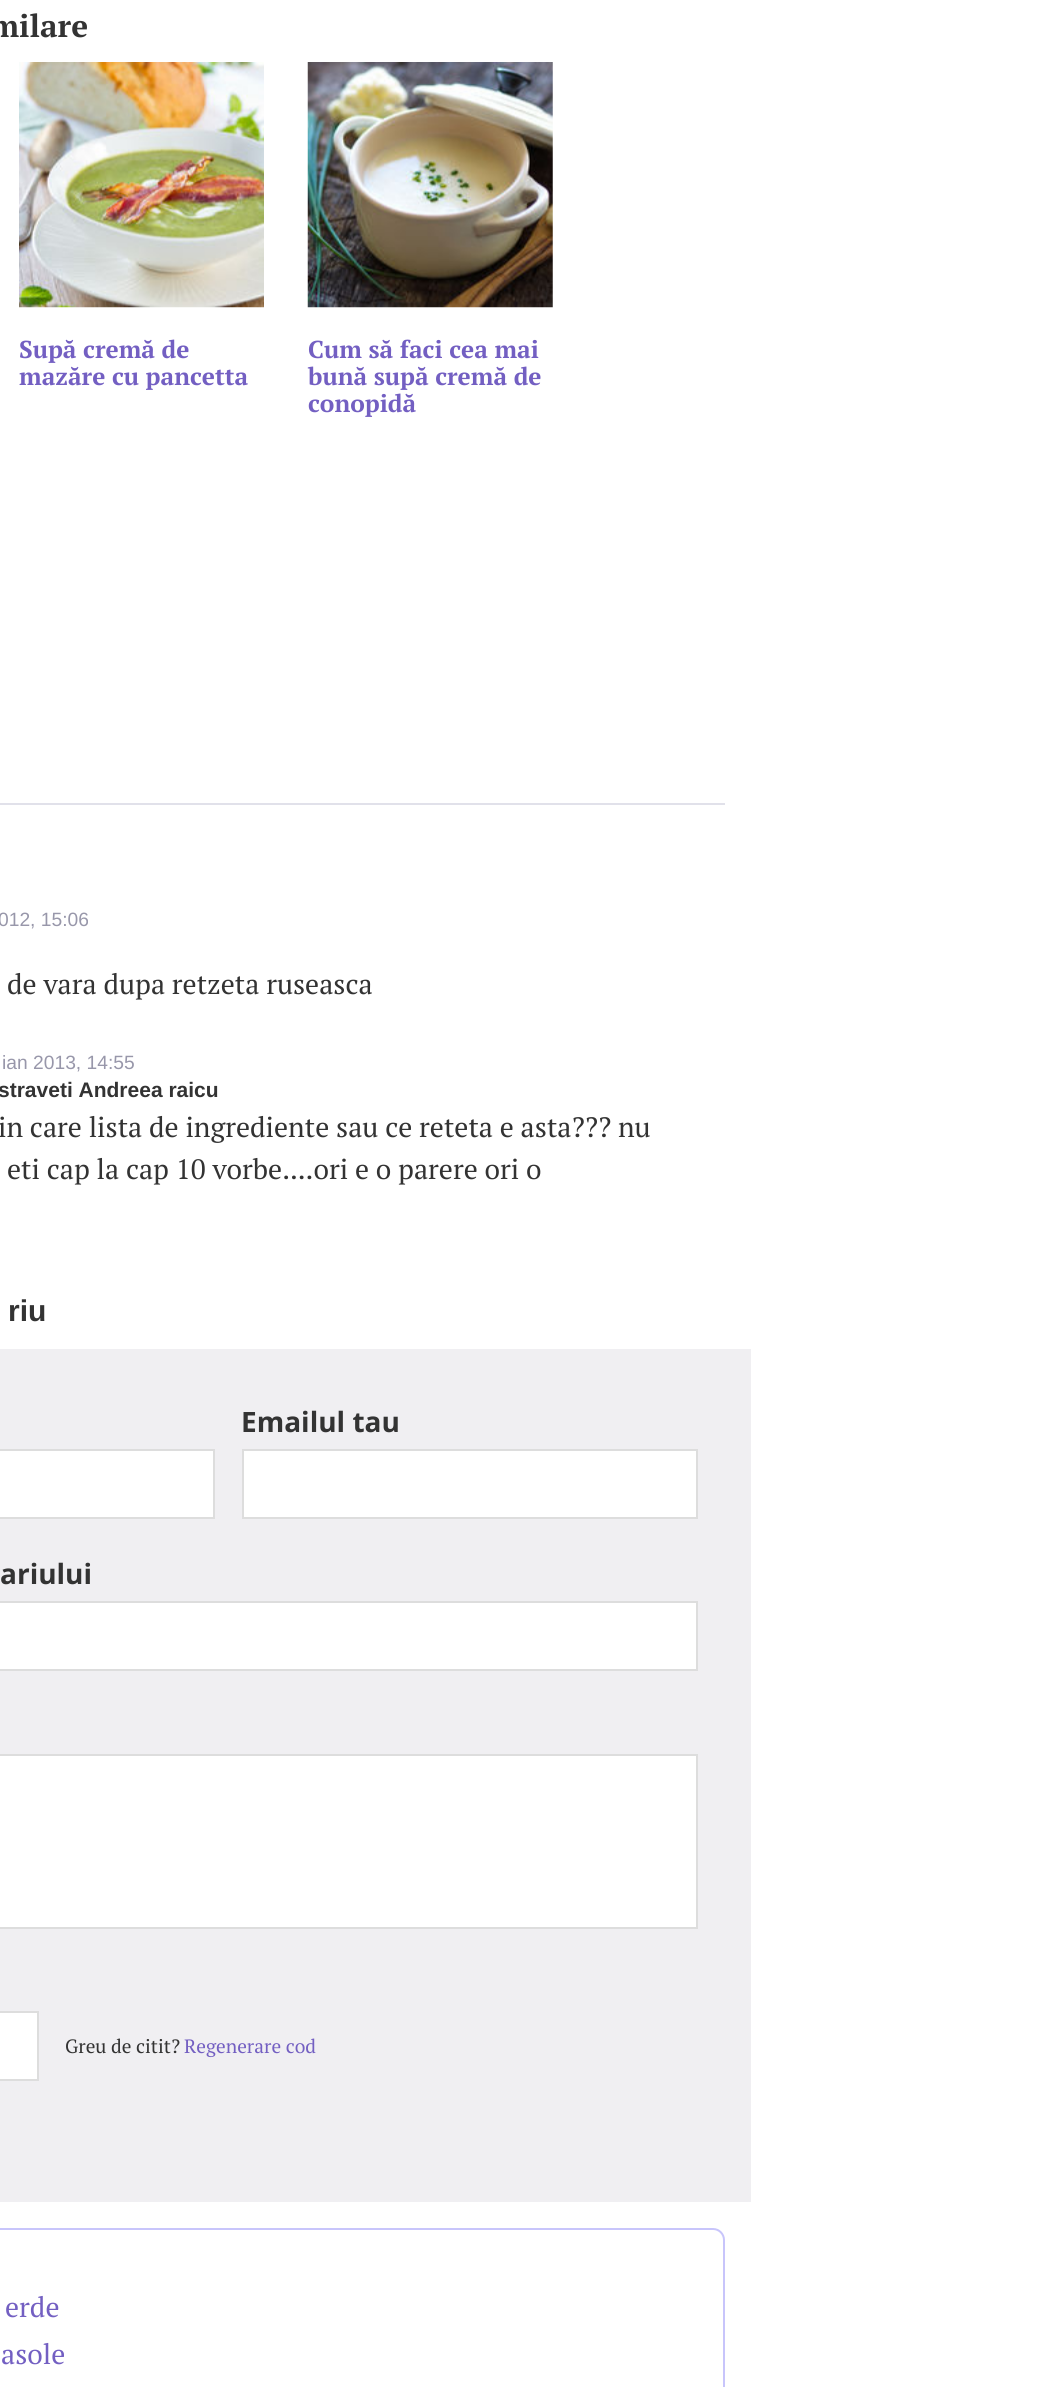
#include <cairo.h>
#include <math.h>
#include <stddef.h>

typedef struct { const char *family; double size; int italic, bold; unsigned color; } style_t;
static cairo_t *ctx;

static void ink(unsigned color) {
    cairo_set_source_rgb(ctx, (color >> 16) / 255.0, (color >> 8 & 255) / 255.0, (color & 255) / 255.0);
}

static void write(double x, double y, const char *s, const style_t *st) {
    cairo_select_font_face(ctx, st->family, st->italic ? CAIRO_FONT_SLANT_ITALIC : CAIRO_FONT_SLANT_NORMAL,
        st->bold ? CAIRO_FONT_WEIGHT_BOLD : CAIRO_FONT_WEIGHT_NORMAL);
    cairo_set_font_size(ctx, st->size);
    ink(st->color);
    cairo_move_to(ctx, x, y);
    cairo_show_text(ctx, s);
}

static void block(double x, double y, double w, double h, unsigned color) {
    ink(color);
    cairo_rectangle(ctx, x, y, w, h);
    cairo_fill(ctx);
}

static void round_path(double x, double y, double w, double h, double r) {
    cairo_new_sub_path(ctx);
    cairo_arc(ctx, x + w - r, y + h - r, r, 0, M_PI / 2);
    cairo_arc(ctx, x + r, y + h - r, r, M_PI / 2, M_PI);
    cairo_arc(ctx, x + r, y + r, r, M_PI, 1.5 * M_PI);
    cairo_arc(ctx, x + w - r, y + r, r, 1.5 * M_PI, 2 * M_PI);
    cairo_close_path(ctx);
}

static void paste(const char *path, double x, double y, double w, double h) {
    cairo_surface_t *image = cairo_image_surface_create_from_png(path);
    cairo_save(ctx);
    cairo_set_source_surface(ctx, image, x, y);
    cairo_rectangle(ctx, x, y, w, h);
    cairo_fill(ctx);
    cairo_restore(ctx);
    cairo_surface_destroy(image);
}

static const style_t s1 = {"PT Serif", 31.5, 0, 1, 0x333333};
static const style_t s2 = {"PT Serif", 24.5, 0, 1, 0x735fc2};
static const style_t s3 = {"Liberation Sans", 19.25, 0, 0, 0x9897aa};
static const style_t s4 = {"PT Serif", 28, 0, 0, 0x333333};
static const style_t s5 = {"Liberation Sans", 21, 0, 1, 0x333333};
static const style_t s6 = {"Liberation Sans", 30, 0, 1, 0x333333};
static const style_t s7 = {"Open Sans", 28, 0, 1, 0x333333};
static const style_t s8 = {"PT Serif", 19.25, 0, 0, 0x333333};
static const style_t s9 = {"PT Serif", 19.25, 0, 0, 0x735fc2};
static const style_t s10 = {"PT Serif", 28, 0, 0, 0x735fc2};

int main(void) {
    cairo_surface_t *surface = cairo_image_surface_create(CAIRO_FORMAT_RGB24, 1045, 2387);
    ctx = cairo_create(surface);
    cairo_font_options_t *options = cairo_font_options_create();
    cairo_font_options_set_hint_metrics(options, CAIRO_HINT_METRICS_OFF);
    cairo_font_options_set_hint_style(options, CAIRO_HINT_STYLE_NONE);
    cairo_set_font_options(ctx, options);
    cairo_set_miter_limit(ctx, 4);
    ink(0xffffff);
    cairo_paint(ctx);
    block(0, 803, 725, 2, 0xe1e1ea);
    write(-10, 37, "milare", &s1);
    paste("pic1.png", 19, 62, 245, 246);
    write(19, 358, "Supă cremă de", &s2);
    write(19, 385, "mazăre cu pancetta", &s2);
    paste("pic2.png", 307, 62, 246, 246);
    write(308, 358, "Cum să faci cea mai", &s2);
    write(308, 385, "bună supă cremă de", &s2);
    write(308, 412, "conopidă", &s2);
    write(-2, 926, "012, 15:06", &s3);
    write(7, 994, "de vara dupa retzeta ruseasca", &s4);
    write(2, 1069, "ian 2013, 14:55", &s3);
    write(-2, 1097, "straveti Andreea raicu", &s5);
    write(-2, 1137, "in care lista de ingrediente sau ce reteta e asta?\077? nu", &s4);
    write(7, 1179, "eti cap la cap 10 vorbe....ori e o parere ori o", &s4);
    write(8, 1321, "riu", &s6);
    block(0, 1349, 751, 853, 0xf0eff2);
    write(241, 1432, "Emailul tau", &s7);
    ink(0xffffff);
    cairo_rectangle(ctx, 243, 1450, 454, 68);
    cairo_fill_preserve(ctx);
    ink(0xdddddd);
    cairo_stroke(ctx);
    ink(0xffffff);
    cairo_rectangle(ctx, -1, 1450, 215, 68);
    cairo_fill_preserve(ctx);
    ink(0xdddddd);
    cairo_stroke(ctx);
    write(0, 1584, "ariului", &s7);
    ink(0xffffff);
    cairo_rectangle(ctx, -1, 1602, 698, 68);
    cairo_fill_preserve(ctx);
    ink(0xdddddd);
    cairo_stroke(ctx);
    ink(0xffffff);
    cairo_rectangle(ctx, -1, 1755, 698, 173);
    cairo_fill_preserve(ctx);
    ink(0xdddddd);
    cairo_stroke(ctx);
    ink(0xffffff);
    cairo_rectangle(ctx, -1, 2012, 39, 68);
    cairo_fill_preserve(ctx);
    ink(0xdddddd);
    cairo_stroke(ctx);
    write(65, 2053, "Greu de citit?", &s8);
    write(184, 2053, "Regenerare cod", &s9);
    round_path(-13, 2229, 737, 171, 11);
    ink(0xc8c5fb);
    cairo_stroke(ctx);
    write(5, 2317, "erde", &s10);
    write(1, 2364, "asole", &s10);
    cairo_surface_write_to_png(surface, "screenshot.png");
    cairo_font_options_destroy(options);
    cairo_destroy(ctx);
    cairo_surface_destroy(surface);
    return 0;
}
